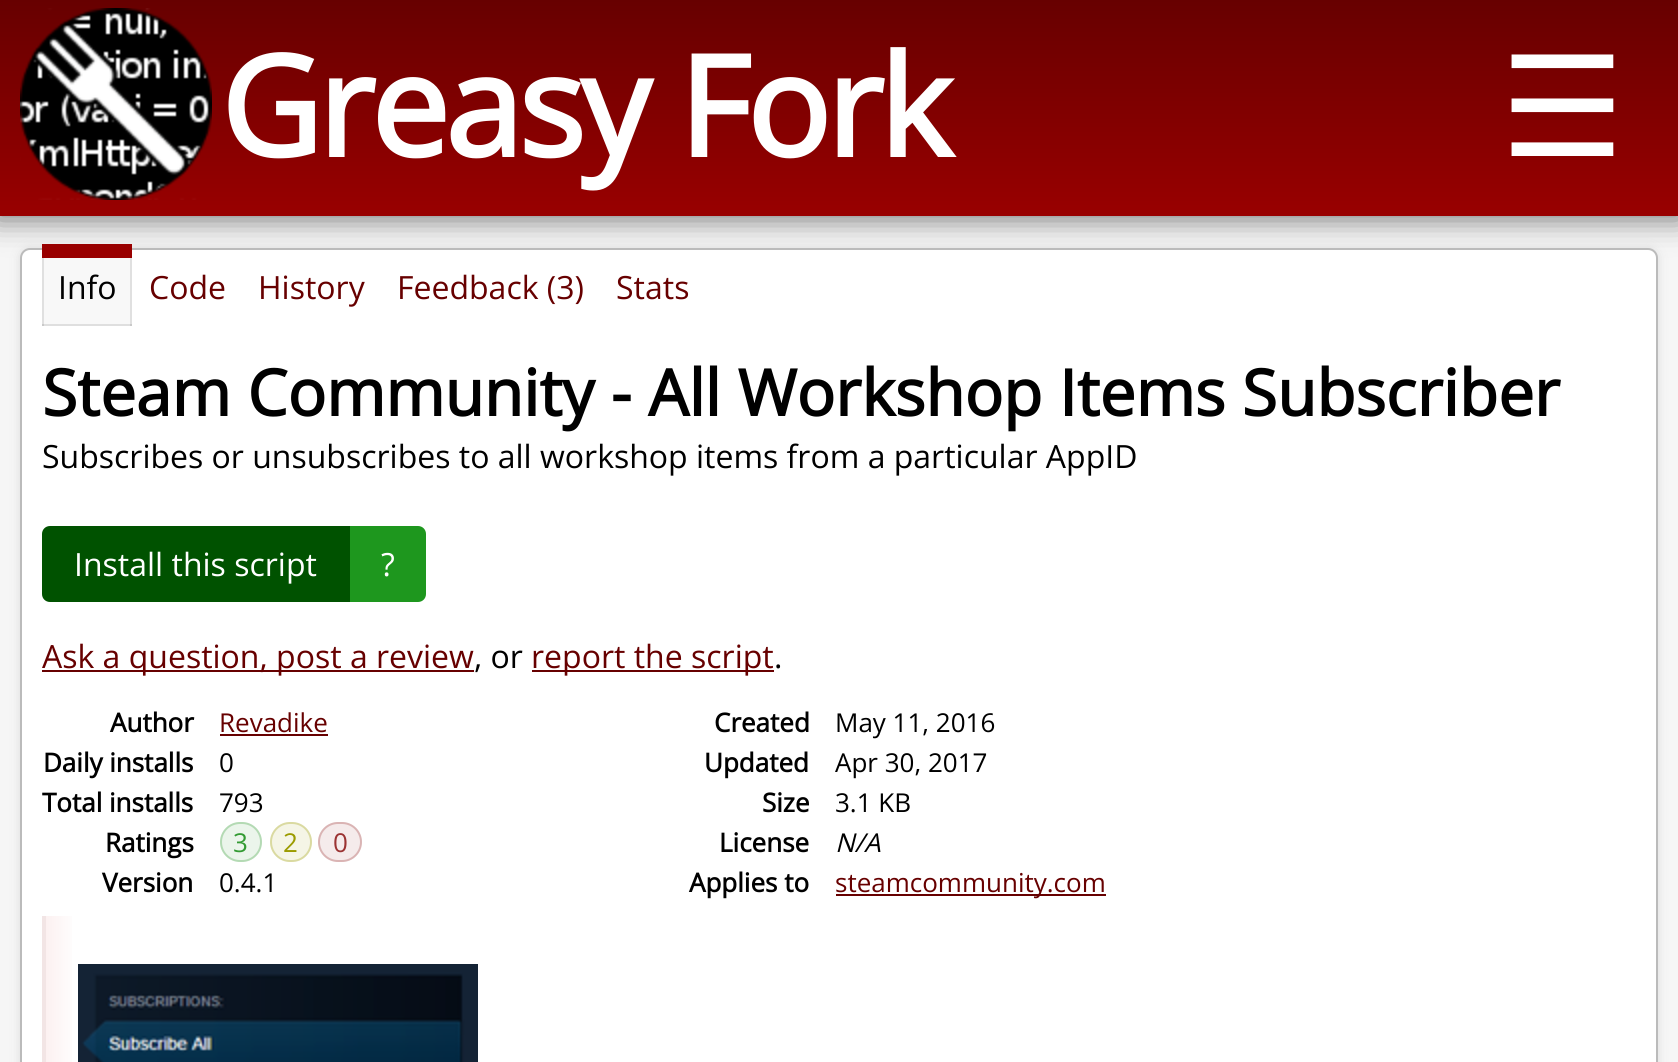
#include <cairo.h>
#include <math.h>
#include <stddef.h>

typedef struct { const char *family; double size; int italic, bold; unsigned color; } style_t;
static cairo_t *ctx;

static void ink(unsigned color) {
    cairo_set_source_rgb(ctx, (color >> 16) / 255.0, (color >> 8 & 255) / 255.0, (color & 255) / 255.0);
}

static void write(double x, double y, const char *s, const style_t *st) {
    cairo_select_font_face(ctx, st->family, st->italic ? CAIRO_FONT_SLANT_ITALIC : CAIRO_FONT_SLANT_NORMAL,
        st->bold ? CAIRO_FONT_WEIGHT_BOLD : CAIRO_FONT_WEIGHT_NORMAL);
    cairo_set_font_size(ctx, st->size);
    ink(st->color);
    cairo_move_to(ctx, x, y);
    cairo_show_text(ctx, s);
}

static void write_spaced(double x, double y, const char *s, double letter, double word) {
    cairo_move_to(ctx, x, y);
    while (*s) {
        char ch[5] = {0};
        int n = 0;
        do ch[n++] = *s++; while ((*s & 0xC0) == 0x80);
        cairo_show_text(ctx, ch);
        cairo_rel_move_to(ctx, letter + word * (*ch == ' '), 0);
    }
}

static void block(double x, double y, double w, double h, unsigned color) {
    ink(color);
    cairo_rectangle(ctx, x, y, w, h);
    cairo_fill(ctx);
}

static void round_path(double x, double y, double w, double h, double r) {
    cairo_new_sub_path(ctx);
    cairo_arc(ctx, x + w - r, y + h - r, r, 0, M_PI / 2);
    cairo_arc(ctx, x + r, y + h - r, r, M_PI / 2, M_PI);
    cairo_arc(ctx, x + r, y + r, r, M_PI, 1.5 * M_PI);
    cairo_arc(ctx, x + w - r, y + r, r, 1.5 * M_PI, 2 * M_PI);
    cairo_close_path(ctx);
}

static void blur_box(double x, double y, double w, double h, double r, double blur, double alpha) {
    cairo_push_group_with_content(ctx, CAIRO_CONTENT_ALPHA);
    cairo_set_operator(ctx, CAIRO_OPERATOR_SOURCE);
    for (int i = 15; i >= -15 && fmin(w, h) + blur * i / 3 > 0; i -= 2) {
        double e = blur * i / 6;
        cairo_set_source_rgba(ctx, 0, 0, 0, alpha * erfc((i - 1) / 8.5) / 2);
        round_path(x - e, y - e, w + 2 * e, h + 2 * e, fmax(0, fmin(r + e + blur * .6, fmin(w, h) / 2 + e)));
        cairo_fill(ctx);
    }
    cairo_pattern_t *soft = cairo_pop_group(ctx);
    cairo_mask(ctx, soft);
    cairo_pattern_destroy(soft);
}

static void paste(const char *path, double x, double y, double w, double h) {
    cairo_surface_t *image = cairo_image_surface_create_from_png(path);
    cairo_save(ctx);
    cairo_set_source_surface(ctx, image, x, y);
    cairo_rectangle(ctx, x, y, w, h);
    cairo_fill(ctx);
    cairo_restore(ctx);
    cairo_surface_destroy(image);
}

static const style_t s1 = {"DejaVu Sans", 139.25, 0, 0, 0xffffff};
static const style_t s2 = {"Open Sans", 32, 0, 0, 0x000000};
static const style_t s3 = {"Open Sans", 32, 0, 0, 0x670000};
static const style_t s4 = {"Open Sans", 64, 0, 1, 0x000000};
static const style_t s5 = {"Open Sans", 32, 0, 0, 0xffffff};
static const style_t s6 = {"Open Sans", 26, 0, 1, 0x000000};
static const style_t s7 = {"Open Sans", 26, 0, 0, 0x670000};
static const style_t s8 = {"Open Sans", 26, 0, 0, 0x000000};
static const style_t s9 = {"Open Sans", 26, 0, 0, 0x339b33};
static const style_t s10 = {"Open Sans", 26, 0, 0, 0x9b9b00};
static const style_t s11 = {"Open Sans", 26, 0, 0, 0x9b3333};
static const style_t s12 = {"Open Sans", 26, 1, 0, 0x000000};

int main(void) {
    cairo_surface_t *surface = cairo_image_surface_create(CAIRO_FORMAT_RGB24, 1678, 1062);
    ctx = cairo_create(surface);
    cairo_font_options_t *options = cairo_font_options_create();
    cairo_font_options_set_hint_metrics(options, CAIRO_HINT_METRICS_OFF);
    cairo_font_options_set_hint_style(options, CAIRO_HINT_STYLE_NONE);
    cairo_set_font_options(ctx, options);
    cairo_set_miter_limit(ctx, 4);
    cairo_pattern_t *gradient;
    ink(0xf6f6f6);
    cairo_paint(ctx);
    ink(0x000000);
    blur_box(-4, -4, 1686, 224, 0, 15, 0.5);
    gradient = cairo_pattern_create_linear(839, 0, 839, 216);
    cairo_pattern_add_color_stop_rgba(gradient, 0, 0.404, 0, 0, 1);
    cairo_pattern_add_color_stop_rgba(gradient, 1, 0.6, 0, 0, 1);
    cairo_set_source(ctx, gradient);
    cairo_pattern_destroy(gradient);
    cairo_rectangle(ctx, 0, 0, 1678, 216);
    cairo_fill(ctx);
    paste("pic1.png", 20, 8, 192, 192);
    cairo_select_font_face(ctx, "Open Sans", CAIRO_FONT_SLANT_NORMAL, CAIRO_FONT_WEIGHT_BOLD);
    cairo_set_font_size(ctx, 139.25);
    ink(0xffffff);
    write_spaced(220, 157, "Greasy Fork", -4, 0);
    write(1500, 156, "☰", &s1);
    ink(0xdddddd);
    blur_box(20, 248, 1638, 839, 10, 5, 1);
    ink(0xffffff);
    round_path(21, 249, 1636, 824, 9);
    cairo_fill_preserve(ctx);
    ink(0xbbbbbb);
    cairo_stroke(ctx);
    cairo_set_source_rgba(ctx, 0, 0, 0, 0.03);
    cairo_rectangle(ctx, 42, 258, 90, 66);
    cairo_fill(ctx);
    block(42, 324, 90, 2, 0xdfdfdf);
    cairo_set_source_rgba(ctx, 0, 0, 0, 0.1);
    cairo_rectangle(ctx, 130, 258, 2, 68);
    cairo_fill(ctx);
    cairo_rectangle(ctx, 42, 258, 2, 68);
    cairo_fill(ctx);
    block(42, 244, 90, 14, 0x990000);
    write(58, 299, "Info", &s2);
    write(149, 299, "Code", &s3);
    write(258, 299, "History", &s3);
    write(397, 299, "Feedback (3)", &s3);
    write(616, 299, "Stats", &s3);
    write(42, 416, "Steam Community - All Workshop Items Subscriber", &s4);
    write(42, 468, "Subscribes or unsubscribes to all workshop items from a particular AppID", &s2);
    ink(0x005200);
    cairo_new_path(ctx);
    cairo_move_to(ctx, 50, 526);
    cairo_line_to(ctx, 350, 526);
    cairo_line_to(ctx, 350, 602);
    cairo_line_to(ctx, 50, 602);
    cairo_curve_to(ctx, 45.5, 602, 42, 598.5, 42, 594);
    cairo_line_to(ctx, 42, 534);
    cairo_curve_to(ctx, 42, 529.5, 45.5, 526, 50, 526);
    cairo_close_path(ctx);
    cairo_fill(ctx);
    write(74, 576, "Install this script", &s5);
    ink(0x1e971e);
    cairo_new_path(ctx);
    cairo_move_to(ctx, 350, 526);
    cairo_line_to(ctx, 418, 526);
    cairo_curve_to(ctx, 422.5, 526, 426, 529.5, 426, 534);
    cairo_line_to(ctx, 426, 594);
    cairo_curve_to(ctx, 426, 598.5, 422.5, 602, 418, 602);
    cairo_line_to(ctx, 350, 602);
    cairo_close_path(ctx);
    cairo_fill(ctx);
    write(381, 576, "?", &s5);
    block(42, 670, 432, 2, 0x670000);
    write(42, 668, "Ask a question, post a review", &s3);
    write(474, 668, ", or", &s2);
    block(532, 670, 242, 2, 0x670000);
    write(531, 668, "report the script", &s3);
    write(774, 668, ".", &s2);
    write(110, 732, "Author", &s6);
    write(219, 732, "Revadike", &s7);
    block(220, 734, 108, 2, 0x670000);
    write(714, 732, "Created", &s6);
    write(835, 732, "May 11, 2016", &s8);
    write(43, 772, "Daily installs", &s6);
    write(219, 772, "0", &s8);
    write(704, 772, "Updated", &s6);
    write(835, 772, "Apr 30, 2017", &s8);
    write(42, 812, "Total installs", &s6);
    write(219, 812, "793", &s8);
    write(762, 812, "Size", &s6);
    write(835, 812, "3.1 KB", &s8);
    write(105, 852, "Ratings", &s6);
    ink(0xebf5eb);
    round_path(220, 822, 42, 40, 20);
    cairo_fill(ctx);
    round_path(221, 823, 40, 38, 19);
    cairo_set_source_rgba(ctx, 0.2, 0.608, 0.2, 0.3);
    cairo_stroke(ctx);
    write(233, 852, "3", &s9);
    ink(0xf5f5e6);
    round_path(270, 822, 42, 40, 20);
    cairo_fill(ctx);
    round_path(271, 823, 40, 38, 19);
    cairo_set_source_rgba(ctx, 0.608, 0.608, 0, 0.3);
    cairo_stroke(ctx);
    write(283, 852, "2", &s10);
    ink(0xf5ebeb);
    round_path(318, 822, 44, 40, 20);
    cairo_fill(ctx);
    round_path(319, 823, 42, 38, 19);
    cairo_set_source_rgba(ctx, 0.608, 0.2, 0.2, 0.3);
    cairo_stroke(ctx);
    write(333, 852, "0", &s11);
    write(719, 852, "License", &s6);
    write(835, 852, "N/A", &s12);
    write(102, 892, "Version", &s6);
    write(219, 892, "0.4.1", &s8);
    write(689, 892, "Applies to", &s6);
    block(836, 894, 270, 2, 0x670000);
    write(835, 892, "steamcommunity.com", &s7);
    gradient = cairo_pattern_create_linear(46, 1035, 1636, 1035);
    cairo_pattern_add_color_stop_rgba(gradient, 0, 0.988, 0.945, 0.945, 1);
    cairo_pattern_add_color_stop_rgba(gradient, 0.02, 1, 1, 1, 1);
    cairo_set_source(ctx, gradient);
    cairo_pattern_destroy(gradient);
    cairo_rectangle(ctx, 46, 916, 26, 146);
    cairo_fill(ctx);
    block(42, 916, 4, 146, 0xf2e5e5);
    paste("pic2.png", 78, 964, 400, 98);
    cairo_surface_write_to_png(surface, "screenshot.png");
    cairo_font_options_destroy(options);
    cairo_destroy(ctx);
    cairo_surface_destroy(surface);
    return 0;
}
